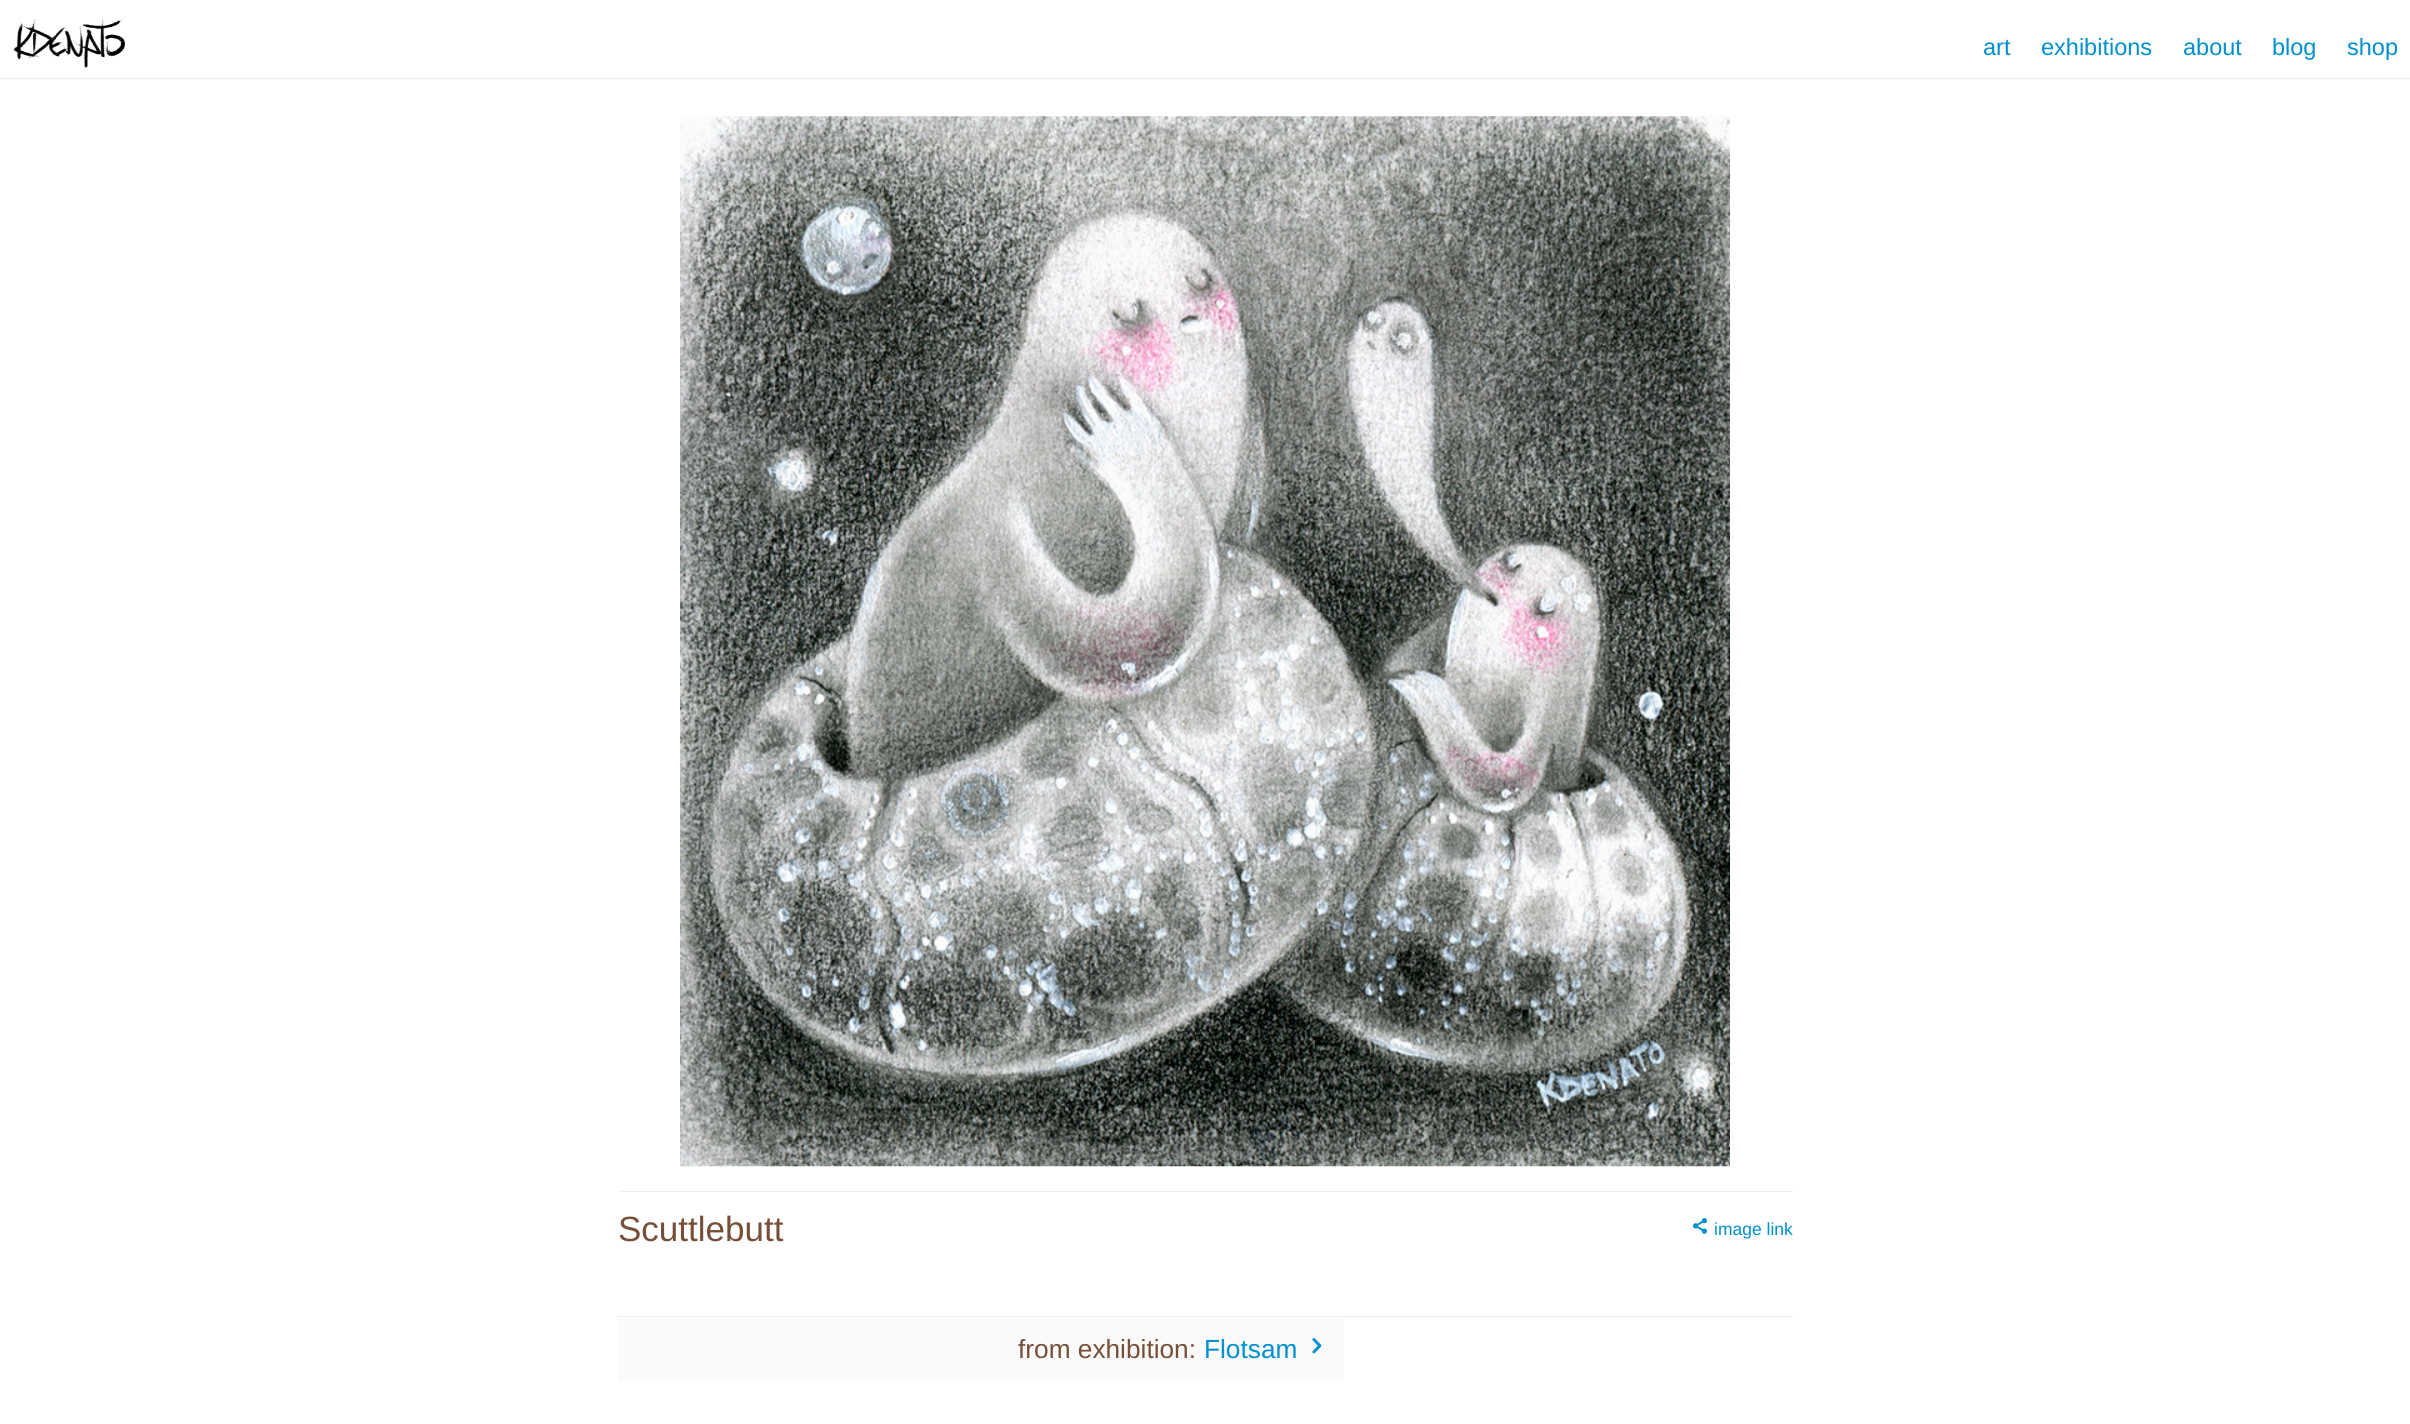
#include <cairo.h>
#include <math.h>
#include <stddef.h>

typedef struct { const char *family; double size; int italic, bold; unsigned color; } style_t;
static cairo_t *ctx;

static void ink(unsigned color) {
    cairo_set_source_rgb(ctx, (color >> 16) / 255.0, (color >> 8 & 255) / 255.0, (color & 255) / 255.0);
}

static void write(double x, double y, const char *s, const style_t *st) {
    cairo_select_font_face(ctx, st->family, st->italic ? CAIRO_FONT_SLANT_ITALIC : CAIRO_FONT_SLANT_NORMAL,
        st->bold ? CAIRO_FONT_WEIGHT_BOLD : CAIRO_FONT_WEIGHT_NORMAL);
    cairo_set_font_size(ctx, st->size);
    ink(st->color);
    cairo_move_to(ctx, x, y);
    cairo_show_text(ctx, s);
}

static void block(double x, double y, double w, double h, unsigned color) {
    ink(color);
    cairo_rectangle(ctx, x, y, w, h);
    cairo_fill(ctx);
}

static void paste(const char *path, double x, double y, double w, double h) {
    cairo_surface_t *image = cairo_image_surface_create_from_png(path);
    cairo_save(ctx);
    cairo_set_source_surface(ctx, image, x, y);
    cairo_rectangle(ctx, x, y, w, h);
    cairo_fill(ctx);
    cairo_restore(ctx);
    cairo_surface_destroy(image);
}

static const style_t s1 = {"Liberation Sans", 23.5, 0, 0, 0x008fcf};
static const style_t s2 = {"Liberation Sans", 35, 0, 0, 0x774f38};
static const style_t s3 = {"Liberation Sans", 17.5, 0, 0, 0x008fcf};
static const style_t s4 = {"Liberation Sans", 26.25, 0, 0, 0x774f38};
static const style_t s5 = {"Liberation Sans", 26.25, 0, 0, 0x008fcf};

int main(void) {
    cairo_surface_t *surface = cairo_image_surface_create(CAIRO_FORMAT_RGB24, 2410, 1424);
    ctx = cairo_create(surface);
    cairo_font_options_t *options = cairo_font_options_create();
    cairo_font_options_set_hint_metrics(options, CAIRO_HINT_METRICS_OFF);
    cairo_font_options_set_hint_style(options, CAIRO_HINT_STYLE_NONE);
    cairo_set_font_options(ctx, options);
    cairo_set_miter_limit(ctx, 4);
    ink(0xffffff);
    cairo_paint(ctx);
    paste("pic1.png", 13, 19, 112, 49);
    write(1983, 55, "art", &s1);
    write(2041, 55, "exhibitions", &s1);
    write(2183, 55, "about", &s1);
    write(2272, 55, "blog", &s1);
    write(2347, 55, "shop", &s1);
    block(0, 78, 2410, 1, 0xeeeeee);
    paste("pic2.png", 680, 116, 1050, 1051);
    block(618, 1191, 1175, 1, 0xeeeeee);
    write(618, 1241, "Scuttlebutt", &s2);
    paste("pic3.png", 1693, 1218, 14, 16);
    write(1714, 1235, "image link", &s3);
    block(618, 1316, 1175, 1, 0xeeeeee);
    block(618, 1318, 726, 63, 0xfafafa);
    write(1018, 1358, "from exhibition:", &s4);
    write(1204, 1358, "Flotsam", &s5);
    paste("pic4.png", 1312, 1338, 10, 16);
    cairo_surface_write_to_png(surface, "screenshot.png");
    cairo_font_options_destroy(options);
    cairo_destroy(ctx);
    cairo_surface_destroy(surface);
    return 0;
}
